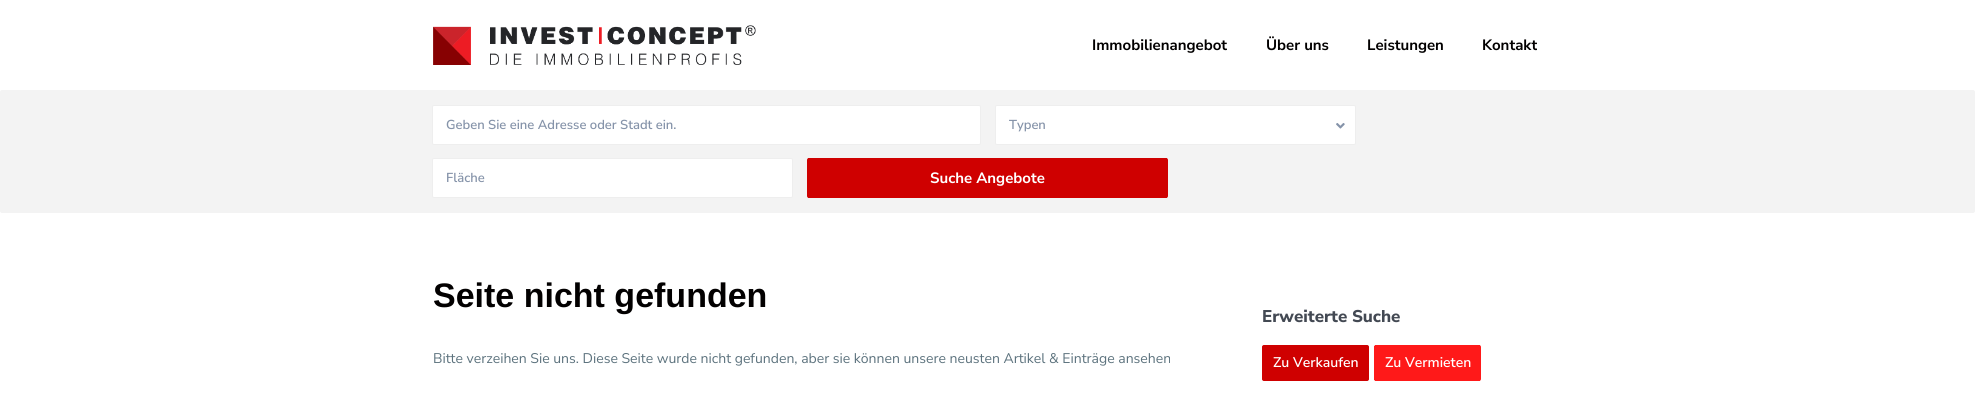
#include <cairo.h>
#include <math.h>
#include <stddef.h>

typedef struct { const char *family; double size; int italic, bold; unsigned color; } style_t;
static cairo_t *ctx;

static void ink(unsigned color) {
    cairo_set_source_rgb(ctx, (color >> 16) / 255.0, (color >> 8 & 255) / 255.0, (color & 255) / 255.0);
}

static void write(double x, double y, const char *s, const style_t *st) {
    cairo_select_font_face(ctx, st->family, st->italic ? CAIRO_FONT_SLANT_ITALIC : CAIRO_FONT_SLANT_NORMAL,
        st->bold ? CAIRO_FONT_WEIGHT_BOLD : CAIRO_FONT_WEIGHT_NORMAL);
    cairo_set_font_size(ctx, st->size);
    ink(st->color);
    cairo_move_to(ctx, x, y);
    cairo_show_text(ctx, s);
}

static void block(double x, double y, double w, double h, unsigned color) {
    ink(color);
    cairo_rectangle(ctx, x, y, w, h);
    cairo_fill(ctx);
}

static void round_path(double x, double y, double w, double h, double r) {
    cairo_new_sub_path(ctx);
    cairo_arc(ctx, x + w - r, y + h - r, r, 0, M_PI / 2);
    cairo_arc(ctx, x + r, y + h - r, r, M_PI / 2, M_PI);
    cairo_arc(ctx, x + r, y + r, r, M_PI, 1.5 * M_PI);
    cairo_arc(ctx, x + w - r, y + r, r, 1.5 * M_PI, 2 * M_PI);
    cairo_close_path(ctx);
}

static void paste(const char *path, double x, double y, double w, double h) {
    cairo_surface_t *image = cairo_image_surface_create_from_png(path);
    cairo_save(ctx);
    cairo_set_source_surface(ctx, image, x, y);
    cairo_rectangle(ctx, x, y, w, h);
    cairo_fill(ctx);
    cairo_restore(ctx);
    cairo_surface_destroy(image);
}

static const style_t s1 = {"Nunito Sans", 15, 0, 1, 0x020000};
static const style_t s2 = {"Nunito Sans SemiBold", 13, 0, 0, 0x8593a9};
static const style_t s3 = {"Nunito Sans", 15, 0, 1, 0xffffff};
static const style_t s4 = {"Liberation Sans", 34, 0, 1, 0x020000};
static const style_t s5 = {"Nunito Sans", 14, 0, 0, 0x5c727d};
static const style_t s6 = {"Nunito Sans ExtraBold", 17, 0, 0, 0x434953};
static const style_t s7 = {"Nunito Sans SemiBold", 14, 0, 0, 0xffffff};

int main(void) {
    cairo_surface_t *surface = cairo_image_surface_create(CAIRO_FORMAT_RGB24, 1975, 393);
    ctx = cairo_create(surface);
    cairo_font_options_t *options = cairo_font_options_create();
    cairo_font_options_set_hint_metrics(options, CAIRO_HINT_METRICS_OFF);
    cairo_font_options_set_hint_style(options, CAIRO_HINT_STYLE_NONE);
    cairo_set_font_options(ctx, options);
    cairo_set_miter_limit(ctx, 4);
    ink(0xffffff);
    cairo_paint(ctx);
    paste("pic1.png", 433, 25, 323, 40);
    write(1092, 50, "Immobilienangebot", &s1);
    write(1266, 50, "Über uns", &s1);
    write(1367, 50, "Leistungen", &s1);
    write(1482, 50, "Kontakt", &s1);
    ink(0xf3f3f3);
    round_path(0, 90, 1975, 123, 2);
    cairo_fill(ctx);
    ink(0xffffff);
    round_path(432.5, 105.5, 548, 39, 1.5);
    cairo_fill_preserve(ctx);
    ink(0xeeeeee);
    cairo_set_line_width(ctx, 1);
    cairo_stroke(ctx);
    write(446, 129, "Geben Sie eine Adresse oder Stadt ein.", &s2);
    ink(0xffffff);
    round_path(995.5, 105.5, 360, 39, 1.5);
    cairo_fill_preserve(ctx);
    ink(0xeeeeee);
    cairo_stroke(ctx);
    write(1009, 129, "Typen", &s2);
    paste("pic2.png", 1336, 123, 9, 6);
    ink(0xffffff);
    round_path(432.5, 158.5, 360, 39, 1.5);
    cairo_fill_preserve(ctx);
    ink(0xeeeeee);
    cairo_stroke(ctx);
    write(446, 182, "Fläche", &s2);
    cairo_save(ctx);
    round_path(807, 158, 361, 40, 2);
    cairo_clip(ctx);
    block(808, 158, 359, 40, 0xcf0000);
    cairo_restore(ctx);
    round_path(807.5, 158.5, 360, 39, 1.5);
    ink(0xcf0000);
    cairo_stroke(ctx);
    write(930, 183, "Suche Angebote", &s3);
    write(433, 307, "Seite nicht gefunden", &s4);
    write(433, 363, "Bitte verzeihen Sie uns. Diese Seite wurde nicht gefunden, aber sie können unsere neusten Artikel & Einträge ansehen", &s5);
    write(1262, 322, "Erweiterte Suche", &s6);
    ink(0xcf0000);
    round_path(1262.5, 345.5, 106, 35, 1.5);
    cairo_fill_preserve(ctx);
    cairo_stroke(ctx);
    write(1273, 367, "Zu Verkaufen", &s7);
    ink(0xff1919);
    round_path(1374, 345, 107, 36, 2);
    cairo_fill(ctx);
    block(1375, 345, 105, 1, 0xff1919);
    block(1375, 380, 105, 1, 0xff1919);
    block(1374, 346, 1, 34, 0xff1919);
    write(1385, 367, "Zu Vermieten", &s7);
    cairo_surface_write_to_png(surface, "screenshot.png");
    cairo_font_options_destroy(options);
    cairo_destroy(ctx);
    cairo_surface_destroy(surface);
    return 0;
}
